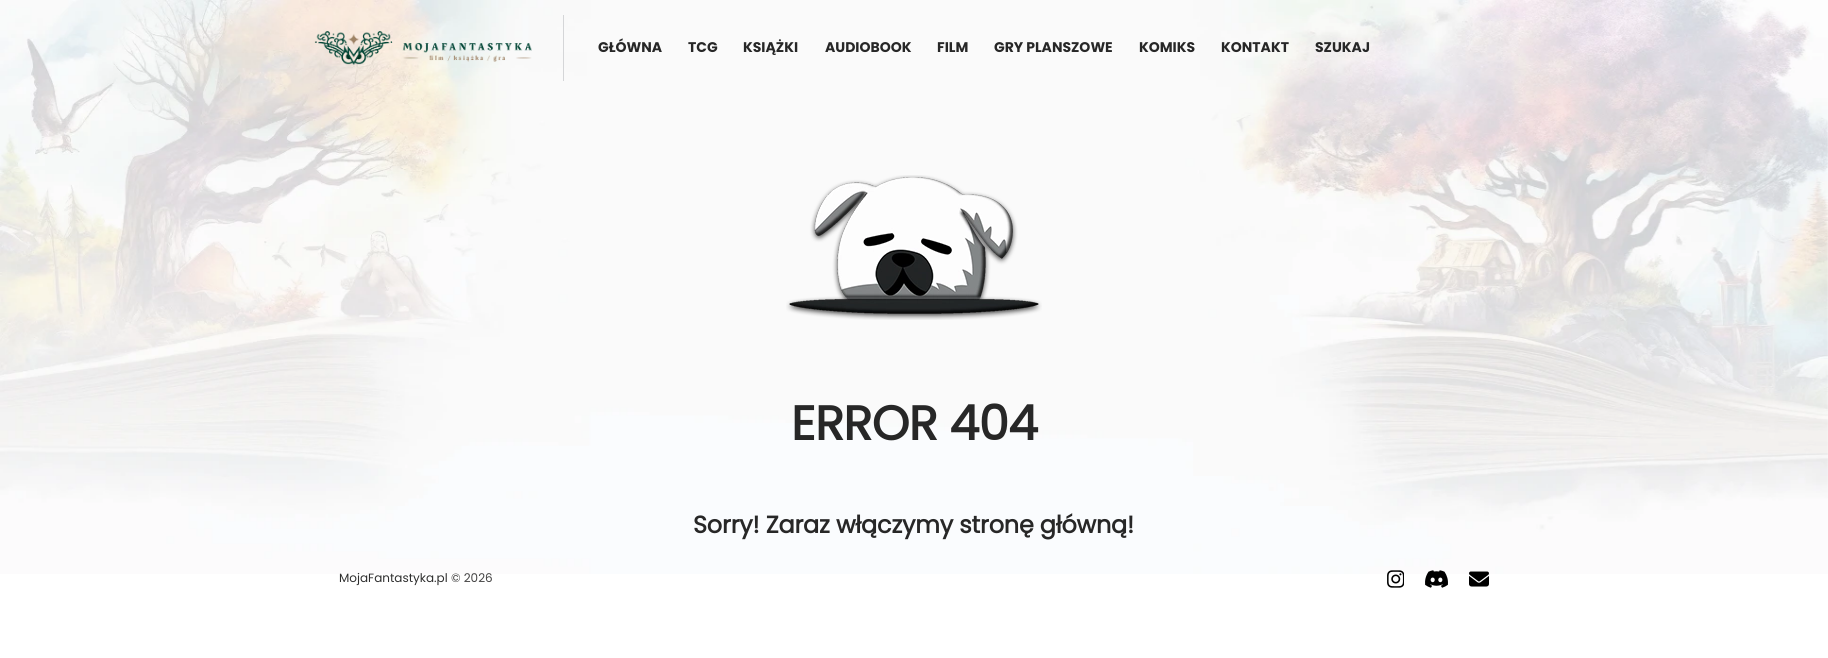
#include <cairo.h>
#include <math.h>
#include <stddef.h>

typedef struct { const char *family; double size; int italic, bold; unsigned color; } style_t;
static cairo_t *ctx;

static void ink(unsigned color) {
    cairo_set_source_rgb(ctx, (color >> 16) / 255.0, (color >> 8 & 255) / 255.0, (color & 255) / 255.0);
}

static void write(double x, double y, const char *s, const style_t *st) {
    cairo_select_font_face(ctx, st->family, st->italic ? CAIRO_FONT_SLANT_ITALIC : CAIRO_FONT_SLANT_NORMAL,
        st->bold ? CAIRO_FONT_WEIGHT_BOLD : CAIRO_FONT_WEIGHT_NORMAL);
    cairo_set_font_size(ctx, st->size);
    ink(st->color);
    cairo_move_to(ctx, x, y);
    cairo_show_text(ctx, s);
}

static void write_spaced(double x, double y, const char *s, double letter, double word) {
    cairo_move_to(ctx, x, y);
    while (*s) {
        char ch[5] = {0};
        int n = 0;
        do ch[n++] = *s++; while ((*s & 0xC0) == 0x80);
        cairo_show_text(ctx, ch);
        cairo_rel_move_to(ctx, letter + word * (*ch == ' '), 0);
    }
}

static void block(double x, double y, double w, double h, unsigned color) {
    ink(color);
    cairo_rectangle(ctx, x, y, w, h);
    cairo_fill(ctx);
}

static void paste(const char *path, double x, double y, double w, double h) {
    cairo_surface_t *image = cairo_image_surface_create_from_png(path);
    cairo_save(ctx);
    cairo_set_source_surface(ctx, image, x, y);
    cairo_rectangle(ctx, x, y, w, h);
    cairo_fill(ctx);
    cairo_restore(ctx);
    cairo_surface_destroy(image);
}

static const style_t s1 = {"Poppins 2", 14, 0, 1, 0x272727};
static const style_t s2 = {"Poppins", 12, 0, 0, 0x2e2e2e};
static const style_t s3 = {"Poppins", 12, 0, 0, 0x434242};

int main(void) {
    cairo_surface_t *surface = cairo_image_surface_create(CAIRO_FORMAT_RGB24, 1828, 658);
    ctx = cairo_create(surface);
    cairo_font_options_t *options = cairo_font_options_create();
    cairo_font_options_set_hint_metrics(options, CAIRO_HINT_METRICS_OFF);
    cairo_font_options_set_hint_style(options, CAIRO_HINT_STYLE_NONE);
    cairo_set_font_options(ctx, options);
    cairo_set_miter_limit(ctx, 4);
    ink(0xffffff);
    cairo_paint(ctx);
    paste("pic1.png", 0, 0, 1828, 574);
    block(563, 15, 1, 66, 0xd5d6d8);
    paste("pic2.png", 314, 31, 218, 34);
    write(598, 52, "GŁÓWNA", &s1);
    write(688, 52, "TCG", &s1);
    write(743, 52, "KSIĄŻKI", &s1);
    write(825, 52, "AUDIOBOOK", &s1);
    write(937, 52, "FILM", &s1);
    write(994, 52, "GRY PLANSZOWE", &s1);
    write(1139, 52, "KOMIKS", &s1);
    write(1221, 52, "KONTAKT", &s1);
    write(1315, 52, "SZUKAJ", &s1);
    paste("pic3.png", 786, 175, 256, 145);
    cairo_select_font_face(ctx, "Poppins", CAIRO_FONT_SLANT_NORMAL, CAIRO_FONT_WEIGHT_BOLD);
    cairo_set_font_size(ctx, 48);
    write_spaced(791, 440, "ERROR 404", -0.75, 0);
    cairo_set_font_size(ctx, 24);
    write_spaced(693, 533, "Sorry! Zaraz włączymy stronę główną!", -0.25, 0);
    write(339, 582, "MojaFantastyka.pl", &s2);
    write(451, 582, "© 2026", &s3);
    paste("pic4.png", 1387, 570, 17, 18);
    paste("pic5.png", 1425, 570, 23, 18);
    paste("pic6.png", 1469, 571, 20, 16);
    cairo_surface_write_to_png(surface, "screenshot.png");
    cairo_font_options_destroy(options);
    cairo_destroy(ctx);
    cairo_surface_destroy(surface);
    return 0;
}
